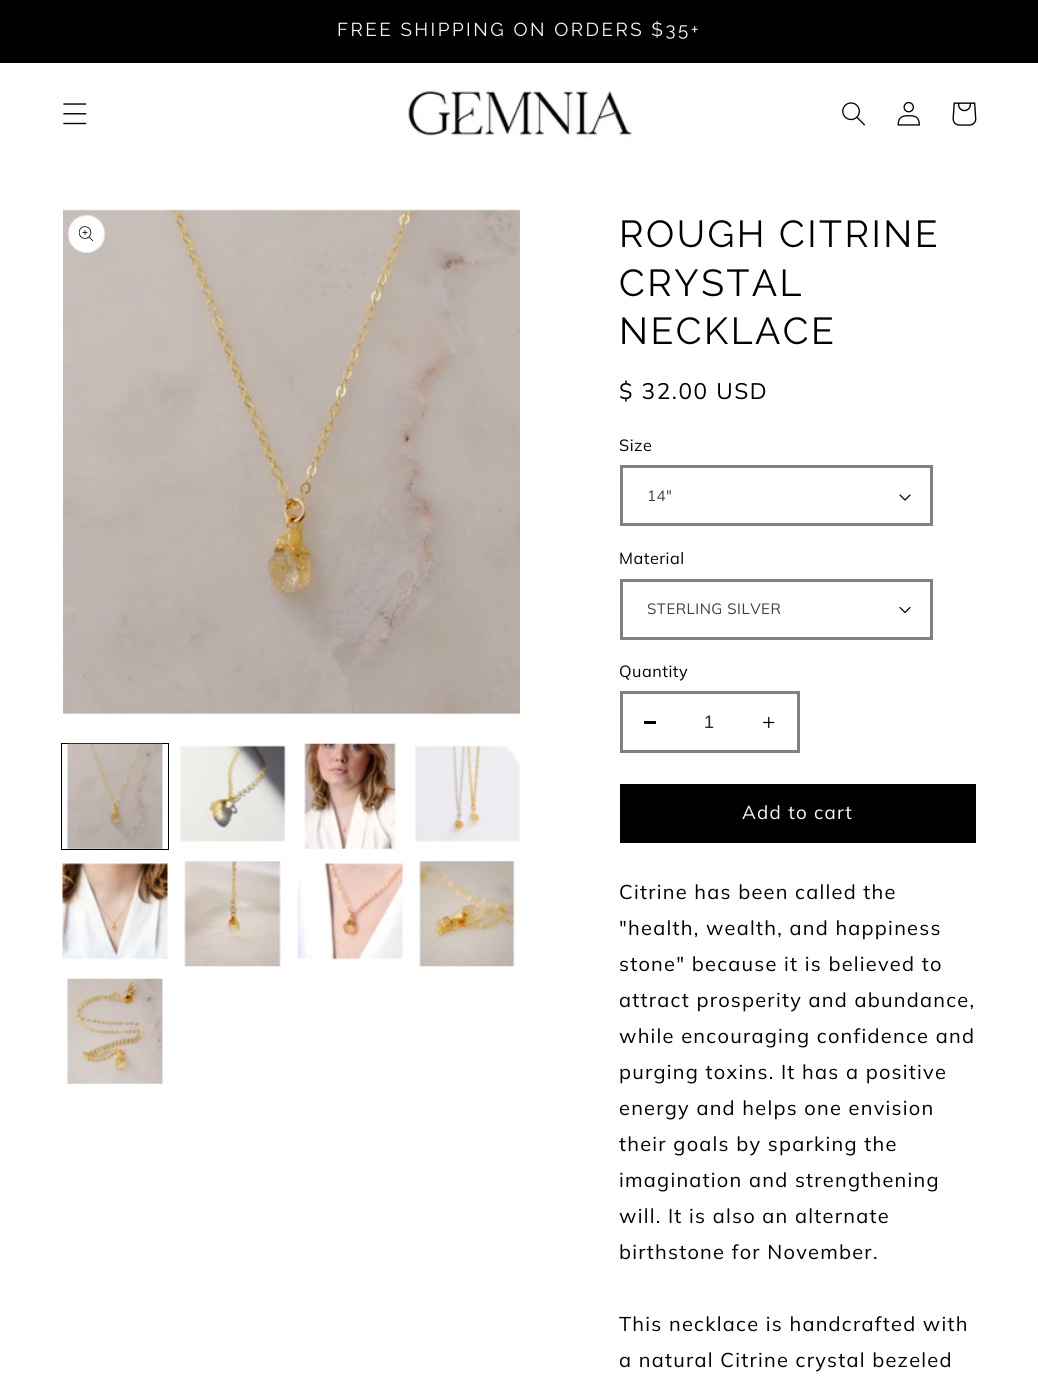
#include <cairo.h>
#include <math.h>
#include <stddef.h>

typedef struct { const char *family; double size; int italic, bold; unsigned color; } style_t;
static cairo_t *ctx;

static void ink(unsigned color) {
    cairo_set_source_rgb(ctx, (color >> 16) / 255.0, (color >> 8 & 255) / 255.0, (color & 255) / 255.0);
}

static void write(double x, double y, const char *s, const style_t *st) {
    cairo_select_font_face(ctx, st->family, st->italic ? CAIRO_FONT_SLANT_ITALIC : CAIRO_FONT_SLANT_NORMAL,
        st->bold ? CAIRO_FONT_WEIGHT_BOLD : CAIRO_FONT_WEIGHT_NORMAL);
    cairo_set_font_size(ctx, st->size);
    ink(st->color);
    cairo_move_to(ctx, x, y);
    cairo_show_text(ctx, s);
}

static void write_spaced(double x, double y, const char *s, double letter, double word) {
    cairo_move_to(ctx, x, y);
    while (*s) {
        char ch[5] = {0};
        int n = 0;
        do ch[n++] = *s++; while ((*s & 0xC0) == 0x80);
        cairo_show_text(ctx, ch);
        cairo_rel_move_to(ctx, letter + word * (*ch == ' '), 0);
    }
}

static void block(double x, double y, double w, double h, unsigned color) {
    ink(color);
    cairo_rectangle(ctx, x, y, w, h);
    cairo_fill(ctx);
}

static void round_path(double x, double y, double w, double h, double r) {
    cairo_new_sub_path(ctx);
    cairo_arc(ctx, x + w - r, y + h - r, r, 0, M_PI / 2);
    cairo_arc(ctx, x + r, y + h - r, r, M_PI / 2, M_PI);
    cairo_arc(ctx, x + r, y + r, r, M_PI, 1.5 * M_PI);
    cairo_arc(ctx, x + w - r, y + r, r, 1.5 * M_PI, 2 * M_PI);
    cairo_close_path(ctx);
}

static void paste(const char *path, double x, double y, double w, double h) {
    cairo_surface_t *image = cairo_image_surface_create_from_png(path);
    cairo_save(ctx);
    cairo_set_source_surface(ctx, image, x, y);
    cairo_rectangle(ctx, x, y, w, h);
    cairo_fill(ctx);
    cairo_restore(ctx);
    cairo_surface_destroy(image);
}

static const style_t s1 = {"Liberation Sans", 18, 0, 0, 0x262626};

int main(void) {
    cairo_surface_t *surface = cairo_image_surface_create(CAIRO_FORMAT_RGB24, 1038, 1399);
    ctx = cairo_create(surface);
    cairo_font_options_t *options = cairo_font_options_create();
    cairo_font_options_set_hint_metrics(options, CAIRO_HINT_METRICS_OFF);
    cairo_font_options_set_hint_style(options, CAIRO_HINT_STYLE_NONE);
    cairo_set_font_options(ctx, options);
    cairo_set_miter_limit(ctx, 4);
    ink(0xffffff);
    cairo_paint(ctx);
    block(0, 0, 1038, 63, 0x000000);
    cairo_select_font_face(ctx, "Raleway", CAIRO_FONT_SLANT_NORMAL, CAIRO_FONT_WEIGHT_NORMAL);
    cairo_set_font_size(ctx, 18.75);
    ink(0xfafafa);
    write_spaced(337, 36, "FREE SHIPPING ON ORDERS $35+", 2.5, 0);
    paste("pic1.png", 63, 103, 24, 22);
    paste("pic2.png", 408, 89, 224, 49);
    paste("pic3.png", 842, 102, 23, 24);
    paste("pic4.png", 897, 101, 23, 25);
    paste("pic5.png", 952, 102, 25, 24);
    paste("pic6.png", 63, 209, 457, 505);
    ink(0xffffff);
    round_path(68, 215, 37, 38, 18.5);
    cairo_fill(ctx);
    round_path(68.5, 215.5, 36, 37, 18);
    cairo_set_source_rgba(ctx, 0, 0, 0, 0.1);
    cairo_set_line_width(ctx, 1);
    cairo_stroke(ctx);
    paste("pic7.png", 79, 226, 15, 16);
    cairo_rectangle(ctx, 61.5, 743.5, 107, 106);
    ink(0x000000);
    cairo_stroke(ctx);
    paste("pic8.png", 67, 743, 96, 106);
    paste("pic9.png", 180, 745, 106, 97);
    paste("pic10.png", 304, 743, 92, 106);
    paste("pic11.png", 415, 745, 105, 97);
    paste("pic12.png", 62, 863, 106, 97);
    paste("pic13.png", 184, 861, 97, 106);
    paste("pic14.png", 297, 863, 106, 97);
    paste("pic15.png", 419, 861, 96, 106);
    paste("pic16.png", 67, 978, 96, 106);
    cairo_set_font_size(ctx, 37.5);
    write_spaced(619, 247, "ROUGH CITRINE", 2.5, 0);
    write_spaced(619, 296, "CRYSTAL", 2.5, 0);
    write_spaced(619, 344, "NECKLACE", 2.5, 0);
    cairo_select_font_face(ctx, "Muli", CAIRO_FONT_SLANT_NORMAL, CAIRO_FONT_WEIGHT_NORMAL);
    cairo_set_font_size(ctx, 22.5);
    write_spaced(619, 399, "$ 32.00 USD", 1.6, 0);
    cairo_set_font_size(ctx, 16.25);
    write_spaced(619, 451, "Size", 0.5, 0);
    paste("pic17.png", 899, 494, 12, 7);
    cairo_rectangle(ctx, 621.5, 466.5, 310, 58);
    ink(0x808080);
    cairo_set_line_width(ctx, 3);
    cairo_stroke(ctx);
    cairo_set_font_size(ctx, 15);
    ink(0x404040);
    write_spaced(647, 501, "14\"", 0.5, 0);
    cairo_set_font_size(ctx, 16.25);
    ink(0x000000);
    write_spaced(619, 564, "Material", 0.5, 0);
    paste("pic18.png", 899, 607, 12, 6);
    cairo_rectangle(ctx, 621.5, 580.5, 310, 58);
    ink(0x808080);
    cairo_stroke(ctx);
    cairo_save(ctx);
    cairo_rectangle(ctx, 648, 596, 257, 25);
    cairo_clip(ctx);
    cairo_set_font_size(ctx, 15);
    ink(0x404040);
    write_spaced(647, 614, "STERLING SILVER", 0.5, 0);
    cairo_restore(ctx);
    ink(0x000000);
    write_spaced(619, 677, "Quantity", 0.5, 0);
    block(644, 721, 12, 3, 0x000000);
    paste("pic19.png", 763, 716, 12, 13);
    cairo_rectangle(ctx, 621.5, 692.5, 177, 59);
    ink(0x808080);
    cairo_stroke(ctx);
    write(704, 728, "1", &s1);
    block(620, 784, 356, 59, 0x000000);
    cairo_select_font_face(ctx, "Muli", CAIRO_FONT_SLANT_NORMAL, CAIRO_FONT_WEIGHT_NORMAL);
    cairo_set_font_size(ctx, 18.75);
    ink(0xfafafa);
    write_spaced(742, 819, "Add to cart", 1.25, 0);
    cairo_set_font_size(ctx, 20);
    ink(0x000000);
    write_spaced(619, 899, "Citrine has been called the", 1.25, 0);
    write_spaced(619, 935, "\"health, wealth, and happiness", 1.25, 0);
    write_spaced(619, 971, "stone\" because it is believed to", 1.25, 0);
    write_spaced(619, 1007, "attract prosperity and abundance,", 1.25, 0);
    write_spaced(619, 1043, "while encouraging confidence and", 1.25, 0);
    write_spaced(619, 1079, "purging toxins. It has a positive", 1.25, 0);
    write_spaced(619, 1115, "energy and helps one envision", 1.25, 0);
    write_spaced(619, 1151, "their goals by sparking the", 1.25, 0);
    write_spaced(619, 1187, "imagination and strengthening", 1.25, 0);
    write_spaced(619, 1223, "will. It is also an alternate", 1.25, 0);
    write_spaced(619, 1259, "birthstone for November.", 1.25, 0);
    write_spaced(619, 1331, "This necklace is handcrafted with", 1.25, 0);
    write_spaced(619, 1367, "a natural Citrine crystal bezeled", 1.25, 0);
    cairo_surface_write_to_png(surface, "screenshot.png");
    cairo_font_options_destroy(options);
    cairo_destroy(ctx);
    cairo_surface_destroy(surface);
    return 0;
}
